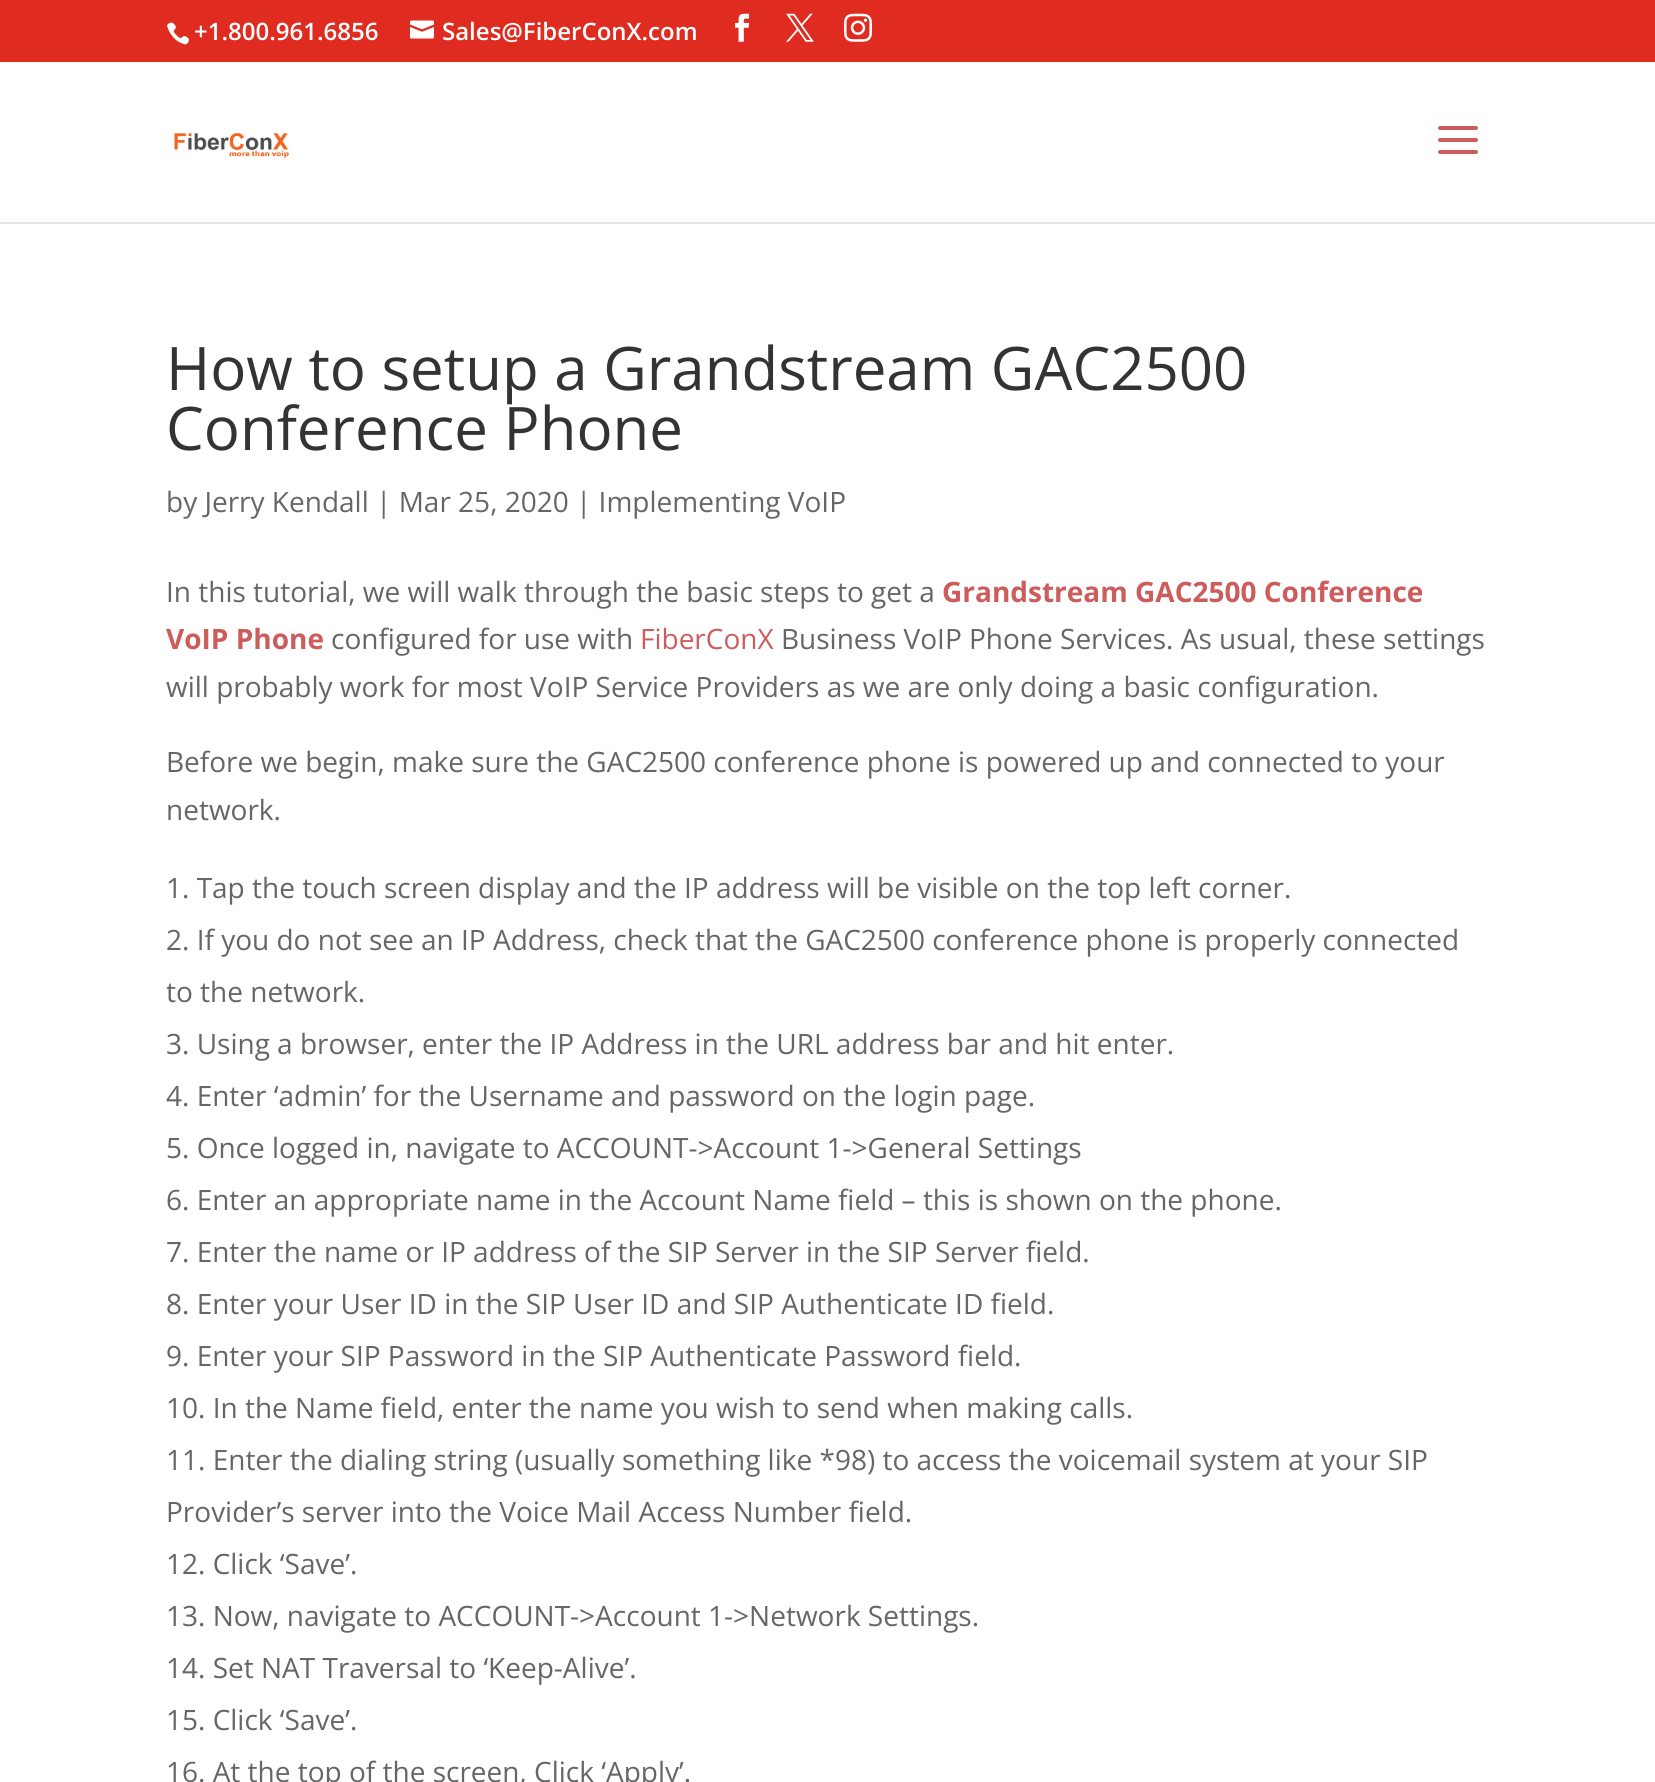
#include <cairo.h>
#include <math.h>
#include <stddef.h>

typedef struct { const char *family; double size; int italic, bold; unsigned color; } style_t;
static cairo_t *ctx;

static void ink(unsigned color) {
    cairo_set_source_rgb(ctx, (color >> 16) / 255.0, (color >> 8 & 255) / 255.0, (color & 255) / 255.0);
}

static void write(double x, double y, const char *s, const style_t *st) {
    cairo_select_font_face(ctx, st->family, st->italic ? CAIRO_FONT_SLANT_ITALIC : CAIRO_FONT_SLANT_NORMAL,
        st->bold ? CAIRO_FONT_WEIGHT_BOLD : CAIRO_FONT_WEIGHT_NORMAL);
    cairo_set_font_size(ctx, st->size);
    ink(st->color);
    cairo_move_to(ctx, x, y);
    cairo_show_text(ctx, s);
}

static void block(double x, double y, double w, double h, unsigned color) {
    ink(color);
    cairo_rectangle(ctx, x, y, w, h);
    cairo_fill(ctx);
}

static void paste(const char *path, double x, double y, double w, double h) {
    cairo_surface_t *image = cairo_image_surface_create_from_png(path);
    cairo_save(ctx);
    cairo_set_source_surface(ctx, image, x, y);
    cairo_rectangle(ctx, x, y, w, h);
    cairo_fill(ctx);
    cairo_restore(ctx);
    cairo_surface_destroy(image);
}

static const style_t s1 = {"Open Sans SemiBold", 24, 0, 0, 0xffffff};
static const style_t s2 = {"Open Sans", 60, 0, 0, 0x333333};
static const style_t s3 = {"Open Sans", 28, 0, 0, 0x666666};
static const style_t s4 = {"Open Sans", 28, 0, 1, 0xcd5c5c};
static const style_t s5 = {"Open Sans", 28, 0, 0, 0xcd5c5c};

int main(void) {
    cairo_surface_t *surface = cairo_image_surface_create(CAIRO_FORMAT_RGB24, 1655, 1782);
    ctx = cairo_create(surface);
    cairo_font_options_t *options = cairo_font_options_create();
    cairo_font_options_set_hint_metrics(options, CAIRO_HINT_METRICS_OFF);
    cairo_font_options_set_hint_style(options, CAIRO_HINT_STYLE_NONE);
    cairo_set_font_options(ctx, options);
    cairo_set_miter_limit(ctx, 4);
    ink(0xffffff);
    cairo_paint(ctx);
    block(0, 0, 1655, 62, 0xe02b20);
    paste("pic1.png", 167, 22, 22, 23);
    write(194, 40, "+1.800.961.6856", &s1);
    paste("pic2.png", 410, 20, 24, 19);
    write(442, 40, "Sales@FiberConX.com", &s1);
    paste("pic3.png", 735, 13, 15, 29);
    paste("pic4.png", 786, 13, 28, 29);
    paste("pic5.png", 844, 13, 28, 29);
    block(0, 222, 1655, 2, 0xe6e6e6);
    paste("pic6.png", 174, 132, 116, 26);
    paste("pic7.png", 1438, 126, 40, 28);
    write(166, 390, "How to setup a Grandstream GAC2500", &s2);
    write(166, 450, "Conference Phone", &s2);
    write(166, 512, "by Jerry Kendall | Mar 25, 2020 | Implementing VoIP", &s3);
    write(166, 602, "In this tutorial, we will walk through the basic steps to get a", &s3);
    write(942, 602, "Grandstream GAC2500 Conference", &s4);
    write(166, 649, "VoIP Phone", &s4);
    write(331, 649, "configured for use with", &s3);
    write(640, 649, "FiberConX", &s5);
    write(781, 649, "Business VoIP Phone Services. As usual, these settings", &s3);
    write(166, 697, "will probably work for most VoIP Service Providers as we are only doing a basic configuration.", &s3);
    write(166, 772, "Before we begin, make sure the GAC2500 conference phone is powered up and connected to your", &s3);
    write(166, 820, "network.", &s3);
    write(166, 898, "1. Tap the touch screen display and the IP address will be visible on the top left corner.", &s3);
    write(166, 950, "2. If you do not see an IP Address, check that the GAC2500 conference phone is properly connected", &s3);
    write(166, 1002, "to the network.", &s3);
    write(166, 1054, "3. Using a browser, enter the IP Address in the URL address bar and hit enter.", &s3);
    write(166, 1106, "4. Enter ‘admin’ for the Username and password on the login page.", &s3);
    write(166, 1158, "5. Once logged in, navigate to ACCOUNT->Account 1->General Settings", &s3);
    write(166, 1210, "6. Enter an appropriate name in the Account Name field – this is shown on the phone.", &s3);
    write(166, 1262, "7. Enter the name or IP address of the SIP Server in the SIP Server field.", &s3);
    write(166, 1314, "8. Enter your User ID in the SIP User ID and SIP Authenticate ID field.", &s3);
    write(166, 1366, "9. Enter your SIP Password in the SIP Authenticate Password field.", &s3);
    write(166, 1418, "10. In the Name field, enter the name you wish to send when making calls.", &s3);
    write(166, 1470, "11. Enter the dialing string (usually something like *98) to access the voicemail system at your SIP", &s3);
    write(166, 1522, "Provider’s server into the Voice Mail Access Number field.", &s3);
    write(166, 1574, "12. Click ‘Save’.", &s3);
    write(166, 1626, "13. Now, navigate to ACCOUNT->Account 1->Network Settings.", &s3);
    write(166, 1678, "14. Set NAT Traversal to ‘Keep-Alive’.", &s3);
    write(166, 1730, "15. Click ‘Save’.", &s3);
    write(166, 1782, "16. At the top of the screen, Click ‘Apply’.", &s3);
    cairo_surface_write_to_png(surface, "screenshot.png");
    cairo_font_options_destroy(options);
    cairo_destroy(ctx);
    cairo_surface_destroy(surface);
    return 0;
}
